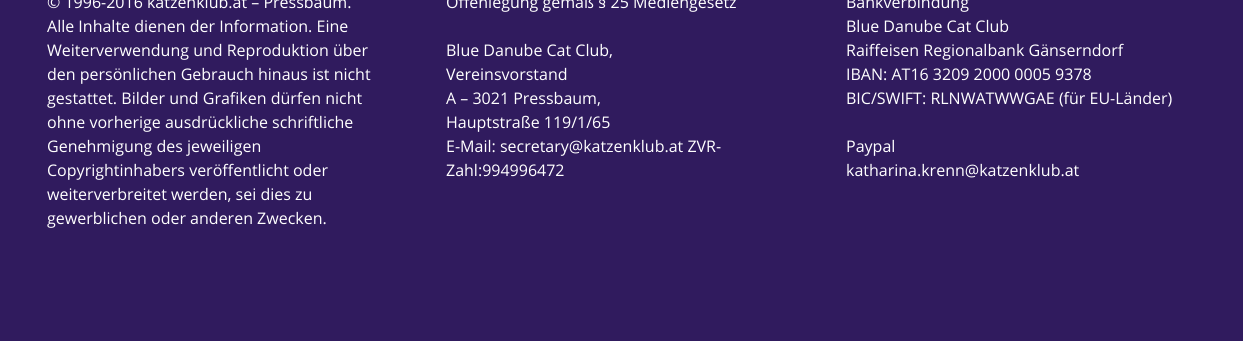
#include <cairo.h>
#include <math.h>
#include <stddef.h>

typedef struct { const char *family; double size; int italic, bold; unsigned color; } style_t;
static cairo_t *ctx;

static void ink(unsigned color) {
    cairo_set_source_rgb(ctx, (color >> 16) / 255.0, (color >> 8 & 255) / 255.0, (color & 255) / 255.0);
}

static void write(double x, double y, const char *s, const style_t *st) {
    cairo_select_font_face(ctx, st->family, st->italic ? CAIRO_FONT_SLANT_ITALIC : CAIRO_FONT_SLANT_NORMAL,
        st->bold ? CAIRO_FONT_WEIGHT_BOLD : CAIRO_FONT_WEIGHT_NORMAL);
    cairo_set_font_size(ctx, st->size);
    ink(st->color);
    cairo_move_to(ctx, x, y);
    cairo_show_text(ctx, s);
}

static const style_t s1 = {"Open Sans", 16, 0, 0, 0xffffff};

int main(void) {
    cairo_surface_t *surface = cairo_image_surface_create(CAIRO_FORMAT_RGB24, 1243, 341);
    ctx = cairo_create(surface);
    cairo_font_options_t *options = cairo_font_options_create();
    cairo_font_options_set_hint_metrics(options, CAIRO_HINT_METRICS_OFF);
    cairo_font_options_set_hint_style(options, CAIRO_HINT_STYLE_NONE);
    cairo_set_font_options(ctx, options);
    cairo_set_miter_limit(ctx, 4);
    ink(0x301b5e);
    cairo_paint(ctx);
    write(47, 8, "© 1996-2016 katzenklub.at – Pressbaum.", &s1);
    write(47, 32, "Alle Inhalte dienen der Information. Eine", &s1);
    write(47, 56, "Weiterverwendung und Reproduktion über", &s1);
    write(47, 80, "den persönlichen Gebrauch hinaus ist nicht", &s1);
    write(47, 104, "gestattet. Bilder und Grafiken dürfen nicht", &s1);
    write(47, 128, "ohne vorherige ausdrückliche schriftliche", &s1);
    write(47, 152, "Genehmigung des jeweiligen", &s1);
    write(47, 176, "Copyrightinhabers veröffentlicht oder", &s1);
    write(47, 200, "weiterverbreitet werden, sei dies zu", &s1);
    write(47, 224, "gewerblichen oder anderen Zwecken.", &s1);
    write(446, 8, "Offenlegung gemäß § 25 Mediengesetz", &s1);
    write(446, 56, "Blue Danube Cat Club,", &s1);
    write(446, 80, "Vereinsvorstand", &s1);
    write(446, 104, "A – 3021 Pressbaum,", &s1);
    write(446, 128, "Hauptstraße 119/1/65", &s1);
    write(446, 152, "E-Mail: secretary@katzenklub.at ZVR-", &s1);
    write(446, 176, "Zahl:994996472", &s1);
    write(846, 8, "Bankverbindung", &s1);
    write(846, 32, "Blue Danube Cat Club", &s1);
    write(846, 56, "Raiffeisen Regionalbank Gänserndorf", &s1);
    write(846, 80, "IBAN: AT16 3209 2000 0005 9378", &s1);
    write(846, 104, "BIC/SWIFT: RLNWATWWGAE (für EU-Länder)", &s1);
    write(846, 152, "Paypal", &s1);
    write(846, 176, "katharina.krenn@katzenklub.at", &s1);
    cairo_surface_write_to_png(surface, "screenshot.png");
    cairo_font_options_destroy(options);
    cairo_destroy(ctx);
    cairo_surface_destroy(surface);
    return 0;
}
